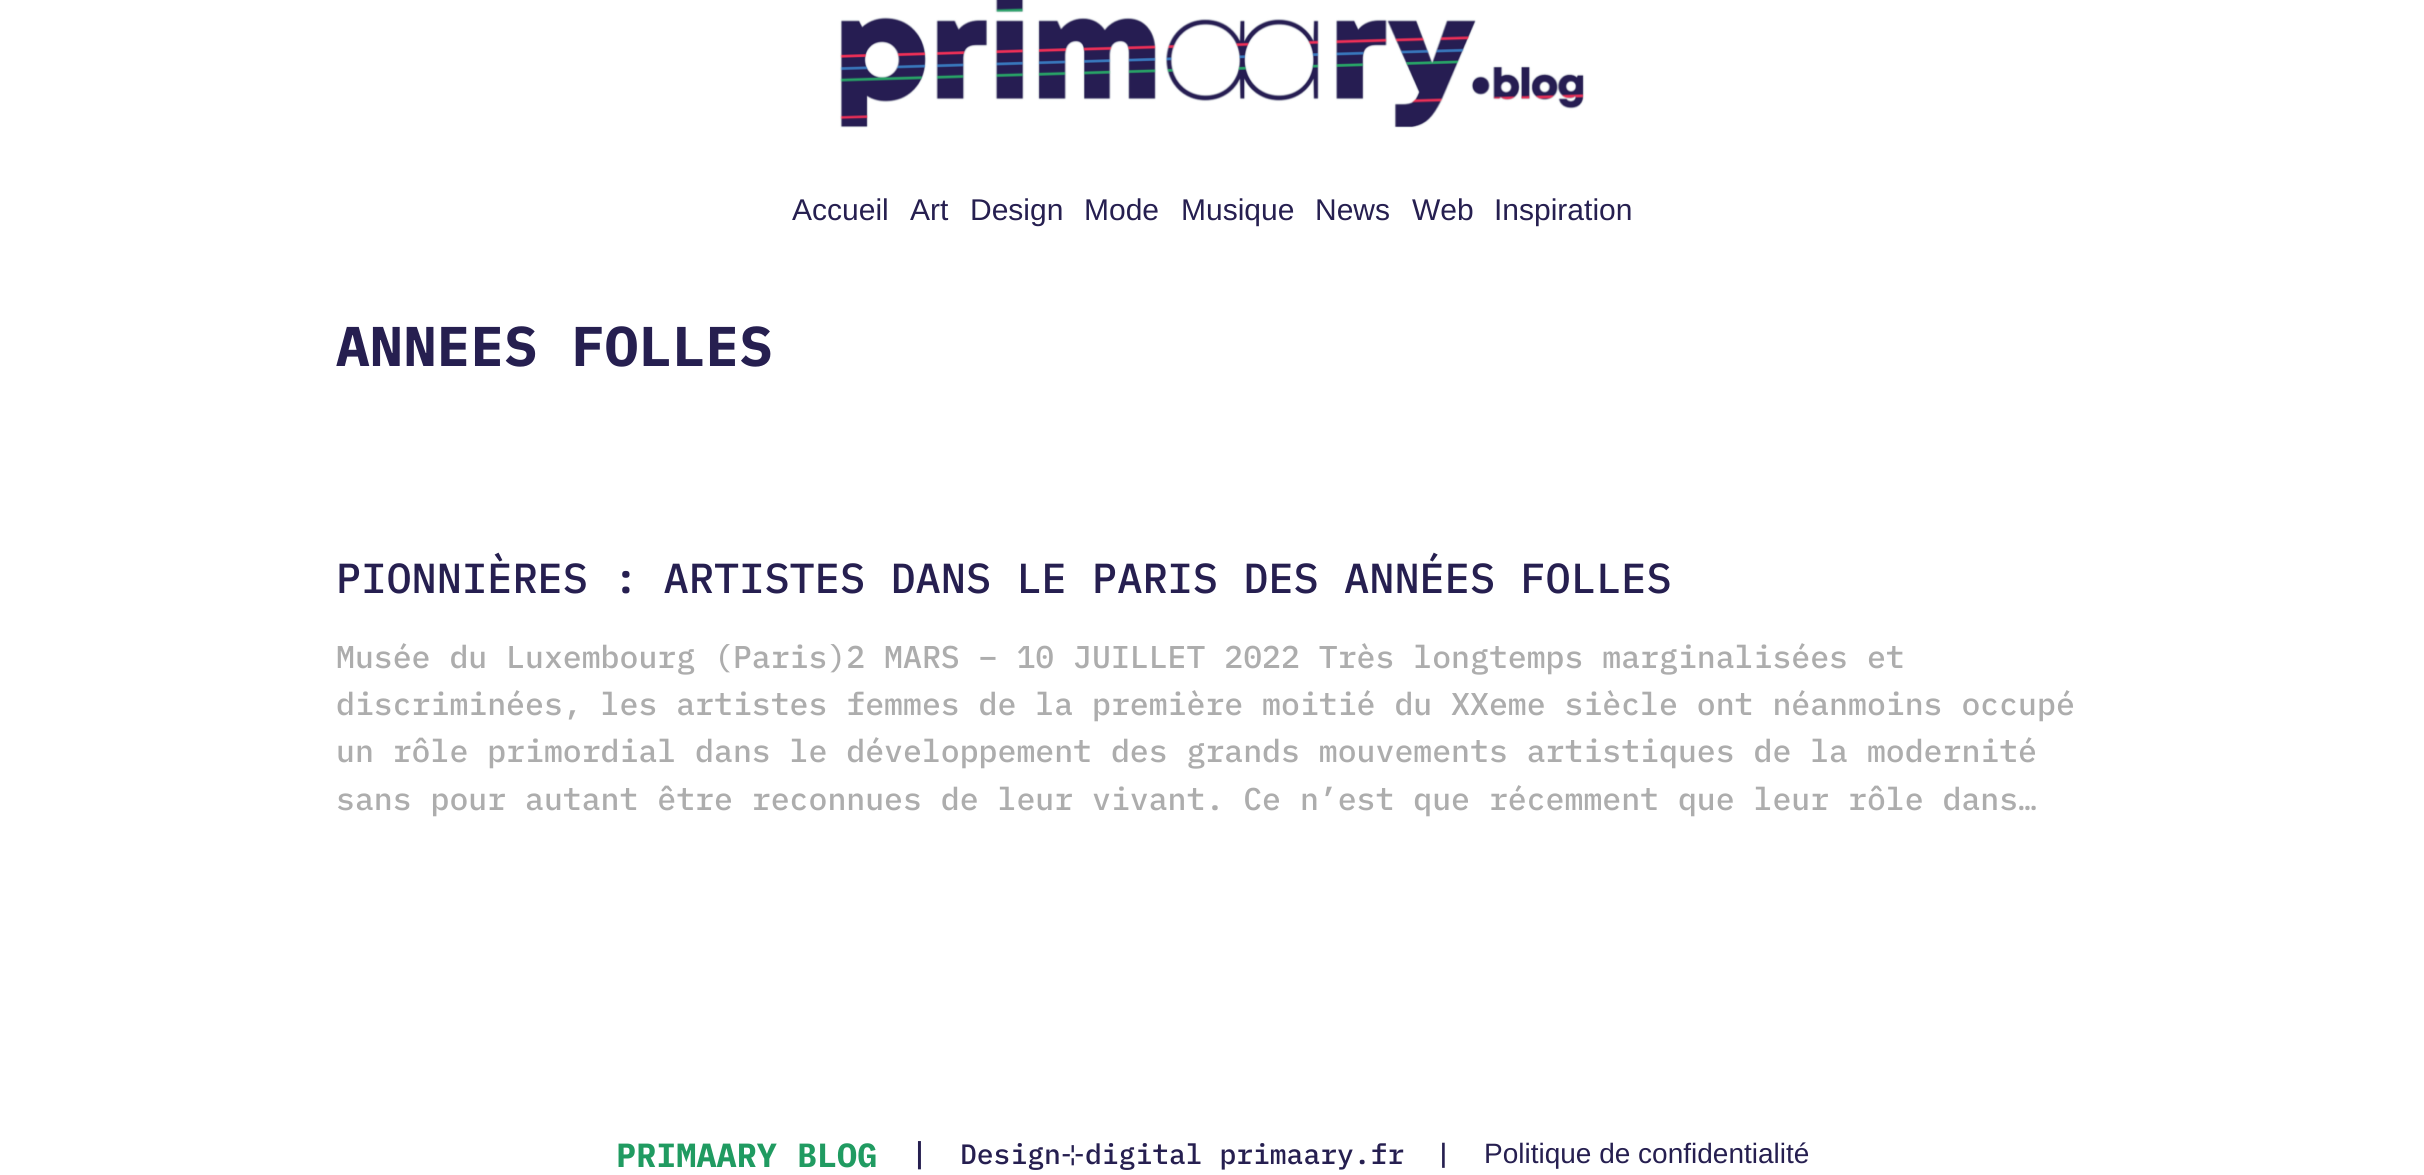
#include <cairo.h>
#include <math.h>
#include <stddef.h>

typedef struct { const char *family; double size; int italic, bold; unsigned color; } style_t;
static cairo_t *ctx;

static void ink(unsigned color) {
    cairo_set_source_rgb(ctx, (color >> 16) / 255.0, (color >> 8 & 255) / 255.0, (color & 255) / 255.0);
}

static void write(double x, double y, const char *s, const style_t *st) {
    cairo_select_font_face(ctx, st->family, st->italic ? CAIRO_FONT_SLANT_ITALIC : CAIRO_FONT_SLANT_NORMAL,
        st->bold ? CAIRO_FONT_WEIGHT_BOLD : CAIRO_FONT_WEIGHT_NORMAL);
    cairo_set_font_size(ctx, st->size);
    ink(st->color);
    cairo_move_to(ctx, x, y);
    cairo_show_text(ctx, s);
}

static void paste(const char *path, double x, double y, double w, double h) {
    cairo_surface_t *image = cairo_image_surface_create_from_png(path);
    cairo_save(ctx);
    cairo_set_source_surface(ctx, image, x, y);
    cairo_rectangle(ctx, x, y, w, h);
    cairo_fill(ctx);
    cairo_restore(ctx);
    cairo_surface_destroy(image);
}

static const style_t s1 = {"Liberation Sans", 30, 0, 0, 0x261f50};
static const style_t s2 = {"IBM Plex Mono", 56, 0, 1, 0x261f50};
static const style_t s3 = {"IBM Plex Mono Medium", 42, 0, 0, 0x261f50};
static const style_t s4 = {"IBM Plex Mono Medium", 31.5, 0, 0, 0xadadad};
static const style_t s5 = {"IBM Plex Mono", 33.5, 0, 1, 0x209b61};
static const style_t s6 = {"IBM Plex Mono Medium", 31.5, 0, 0, 0x261f50};
static const style_t s7 = {"IBM Plex Mono Medium", 28, 0, 0, 0x261f50};
static const style_t s8 = {"DejaVu Sans", 28, 0, 0, 0x261f50};
static const style_t s9 = {"Liberation Sans", 28, 0, 0, 0x261f50};

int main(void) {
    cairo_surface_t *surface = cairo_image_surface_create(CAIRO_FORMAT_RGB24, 2424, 1175);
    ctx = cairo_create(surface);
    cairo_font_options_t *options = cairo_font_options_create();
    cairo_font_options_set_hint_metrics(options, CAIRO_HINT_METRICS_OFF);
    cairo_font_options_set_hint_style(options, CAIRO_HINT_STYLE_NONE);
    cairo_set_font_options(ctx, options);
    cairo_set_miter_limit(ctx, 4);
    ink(0xffffff);
    cairo_paint(ctx);
    paste("pic1.png", 839, 0, 746, 128);
    write(792, 220, "Accueil", &s1);
    write(910, 220, "Art", &s1);
    write(970, 220, "Design", &s1);
    write(1084, 220, "Mode", &s1);
    write(1181, 220, "Musique", &s1);
    write(1315, 220, "News", &s1);
    write(1412, 220, "Web", &s1);
    write(1494, 220, "Inspiration", &s1);
    write(336, 366, "ANNEES FOLLES", &s2);
    write(336, 593, "PIONNIÈRES : ARTISTES DANS LE PARIS DES ANNÉES FOLLES", &s3);
    write(336, 668, "Musée du Luxembourg (Paris)2 MARS – 10 JUILLET 2022 Très longtemps marginalisées et", &s4);
    write(336, 715, "discriminées, les artistes femmes de la première moitié du XXeme siècle ont néanmoins occupé", &s4);
    write(336, 762, "un rôle primordial dans le développement des grands mouvements artistiques de la modernité", &s4);
    write(336, 810, "sans pour autant être reconnues de leur vivant. Ce n’est que récemment que leur rôle dans…", &s4);
    write(616, 1167, "PRIMAARY BLOG", &s5);
    write(910, 1165, "|", &s6);
    write(960, 1164, "Design", &s7);
    write(1061, 1164, "⊹", &s8);
    write(1085, 1164, "digital primaary.fr", &s7);
    write(1435, 1164, "|", &s7);
    write(1484, 1163, "Politique de confidentialité", &s9);
    cairo_surface_write_to_png(surface, "screenshot.png");
    cairo_font_options_destroy(options);
    cairo_destroy(ctx);
    cairo_surface_destroy(surface);
    return 0;
}
